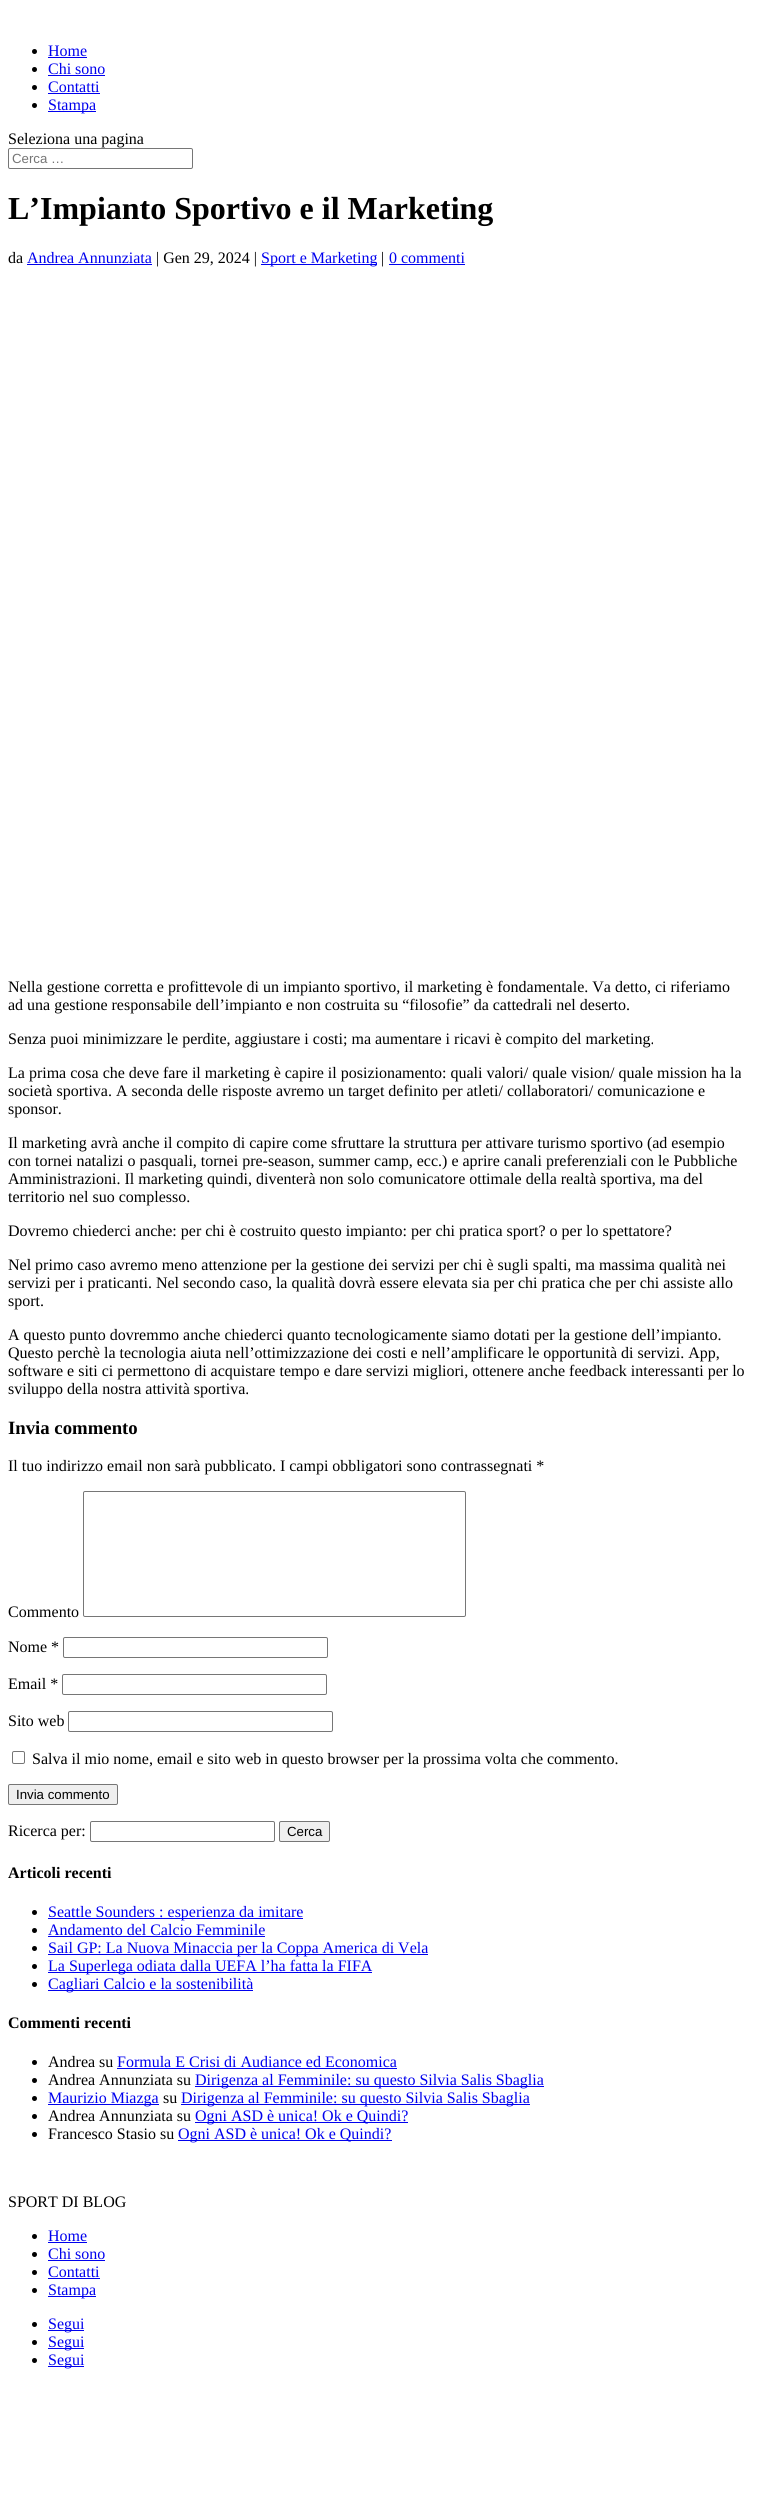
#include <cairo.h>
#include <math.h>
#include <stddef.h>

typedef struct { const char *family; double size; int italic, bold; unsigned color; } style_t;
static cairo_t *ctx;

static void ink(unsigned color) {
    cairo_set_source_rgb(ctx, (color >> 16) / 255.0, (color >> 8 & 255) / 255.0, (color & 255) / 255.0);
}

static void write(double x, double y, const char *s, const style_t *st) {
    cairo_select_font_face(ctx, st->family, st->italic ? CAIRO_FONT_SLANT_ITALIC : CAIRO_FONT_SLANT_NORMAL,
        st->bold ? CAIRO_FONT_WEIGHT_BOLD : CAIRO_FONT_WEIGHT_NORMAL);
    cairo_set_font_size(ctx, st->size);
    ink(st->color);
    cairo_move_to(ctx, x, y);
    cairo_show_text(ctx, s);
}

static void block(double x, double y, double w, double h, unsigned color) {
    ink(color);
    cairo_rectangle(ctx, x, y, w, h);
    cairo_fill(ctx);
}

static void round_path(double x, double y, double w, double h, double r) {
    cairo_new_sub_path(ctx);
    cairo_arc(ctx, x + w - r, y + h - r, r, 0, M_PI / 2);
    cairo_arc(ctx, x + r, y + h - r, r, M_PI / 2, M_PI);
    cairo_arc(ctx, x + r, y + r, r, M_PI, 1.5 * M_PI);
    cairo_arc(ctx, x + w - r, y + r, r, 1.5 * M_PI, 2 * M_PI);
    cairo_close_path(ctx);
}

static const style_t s1 = {"Liberation Serif", 16, 0, 0, 0x0000ee};
static const style_t s2 = {"Liberation Serif", 16, 0, 0, 0x000000};
static const style_t s3 = {"Liberation Sans", 13.25, 0, 0, 0x757575};
static const style_t s4 = {"Liberation Serif", 32, 0, 1, 0x000000};
static const style_t s5 = {"Liberation Serif", 18.75, 0, 1, 0x000000};
static const style_t s6 = {"Liberation Sans", 13.25, 0, 0, 0x000000};
static const style_t s7 = {"Liberation Serif", 16, 0, 1, 0x000000};

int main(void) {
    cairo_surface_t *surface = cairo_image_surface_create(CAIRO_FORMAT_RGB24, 757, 2508);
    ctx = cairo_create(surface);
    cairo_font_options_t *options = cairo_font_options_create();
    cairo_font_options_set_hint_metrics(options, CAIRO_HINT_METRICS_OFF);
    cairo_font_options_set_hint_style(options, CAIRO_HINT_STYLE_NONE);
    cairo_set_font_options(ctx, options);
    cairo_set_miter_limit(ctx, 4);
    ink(0xffffff);
    cairo_paint(ctx);
    ink(0x000000);
    cairo_arc(ctx, 34.5, 51.5, 2.5, 0, 2 * M_PI);
    cairo_fill(ctx);
    write(48, 56, "Home", &s1);
    block(48, 57, 39, 1, 0x0000ee);
    ink(0x000000);
    cairo_new_path(ctx);
    cairo_arc(ctx, 34.5, 69.5, 2.5, 0, 2 * M_PI);
    cairo_fill(ctx);
    write(48, 74, "Chi sono", &s1);
    block(48, 75, 57, 1, 0x0000ee);
    ink(0x000000);
    cairo_new_path(ctx);
    cairo_arc(ctx, 34.5, 87.5, 2.5, 0, 2 * M_PI);
    cairo_fill(ctx);
    write(48, 92, "Contatti", &s1);
    block(48, 93, 52, 1, 0x0000ee);
    ink(0x000000);
    cairo_new_path(ctx);
    cairo_arc(ctx, 34.5, 105.5, 2.5, 0, 2 * M_PI);
    cairo_fill(ctx);
    block(48, 111, 48, 1, 0x0000ee);
    write(48, 110, "Stampa", &s1);
    write(8, 144, "Seleziona una pagina", &s2);
    round_path(8.5, 148.5, 184, 20, 1.5);
    ink(0x767676);
    cairo_set_line_width(ctx, 1);
    cairo_stroke(ctx);
    write(12, 163, "Cerca …", &s3);
    write(8, 219, "L’Impianto Sportivo e il Marketing", &s4);
    write(8, 263, "da", &s2);
    write(27, 263, "Andrea Annunziata", &s1);
    block(27, 264, 125, 1, 0x0000ee);
    write(156, 263, "| Gen 29, 2024 |", &s2);
    block(261, 264, 116, 1, 0x0000ee);
    write(261, 263, "Sport e Marketing", &s1);
    write(381, 263, "|", &s2);
    write(389, 263, "0 commenti", &s1);
    block(389, 264, 76, 1, 0x0000ee);
    write(8, 992, "Nella gestione corretta e profittevole di un impianto sportivo, il marketing è fondamentale. Va detto, ci riferiamo", &s2);
    write(8, 1010, "ad una gestione responsabile dell’impianto e non costruita su “filosofie” da cattedrali nel deserto.", &s2);
    write(8, 1044, "Senza puoi minimizzare le perdite, aggiustare i costi; ma aumentare i ricavi è compito del marketing.", &s2);
    write(8, 1078, "La prima cosa che deve fare il marketing è capire il posizionamento: quali valori/ quale vision/ quale mission ha la", &s2);
    write(8, 1096, "società sportiva. A seconda delle risposte avremo un target definito per atleti/ collaboratori/ comunicazione e", &s2);
    write(8, 1114, "sponsor.", &s2);
    write(8, 1148, "Il marketing avrà anche il compito di capire come sfruttare la struttura per attivare turismo sportivo (ad esempio", &s2);
    write(8, 1166, "con tornei natalizi o pasquali, tornei pre-season, summer camp, ecc.) e aprire canali preferenziali con le Pubbliche", &s2);
    write(8, 1184, "Amministrazioni. Il marketing quindi, diventerà non solo comunicatore ottimale della realtà sportiva, ma del", &s2);
    write(8, 1202, "territorio nel suo complesso.", &s2);
    write(8, 1236, "Dovremo chiederci anche: per chi è costruito questo impianto: per chi pratica sport? o per lo spettatore?", &s2);
    write(8, 1270, "Nel primo caso avremo meno attenzione per la gestione dei servizi per chi è sugli spalti, ma massima qualità nei", &s2);
    write(8, 1288, "servizi per i praticanti. Nel secondo caso, la qualità dovrà essere elevata sia per chi pratica che per chi assiste allo", &s2);
    write(8, 1306, "sport.", &s2);
    write(8, 1340, "A questo punto dovremmo anche chiederci quanto tecnologicamente siamo dotati per la gestione dell’impianto.", &s2);
    write(8, 1358, "Questo perchè la tecnologia aiuta nell’ottimizzazione dei costi e nell’amplificare le opportunità di servizi. App,", &s2);
    write(8, 1376, "software e siti ci permettono di acquistare tempo e dare servizi migliori, ottenere anche feedback interessanti per lo", &s2);
    write(8, 1394, "sviluppo della nostra attività sportiva.", &s2);
    write(8, 1434, "Invia commento", &s5);
    write(8, 1471, "Il tuo indirizzo email non sarà pubblicato. I campi obbligatori sono contrassegnati *", &s2);
    write(8, 1617, "Commento", &s2);
    round_path(83.5, 1491.5, 382, 125, 1.5);
    ink(0x767676);
    cairo_stroke(ctx);
    write(8, 1652, "Nome *", &s2);
    round_path(63.5, 1637.5, 264, 20, 1.5);
    ink(0x767676);
    cairo_stroke(ctx);
    write(8, 1689, "Email *", &s2);
    round_path(62.5, 1674.5, 264, 20, 1.5);
    ink(0x767676);
    cairo_stroke(ctx);
    write(8, 1726, "Sito web", &s2);
    round_path(68.5, 1711.5, 264, 20, 1.5);
    ink(0x767676);
    cairo_stroke(ctx);
    round_path(12.5, 1751.5, 12, 12, 1.5);
    cairo_stroke(ctx);
    write(32, 1764, "Salva il mio nome, email e sito web in questo browser per la prossima volta che commento.", &s2);
    ink(0xefefef);
    round_path(8.5, 1784.5, 109, 20, 1.5);
    cairo_fill_preserve(ctx);
    ink(0x767676);
    cairo_stroke(ctx);
    write(16, 1799, "Invia commento", &s6);
    write(8, 1836, "Ricerca per:", &s2);
    round_path(90.5, 1821.5, 184, 20, 1.5);
    ink(0x767676);
    cairo_stroke(ctx);
    ink(0xefefef);
    round_path(279.5, 1821.5, 50, 20, 1.5);
    cairo_fill_preserve(ctx);
    ink(0x767676);
    cairo_stroke(ctx);
    write(287, 1836, "Cerca", &s6);
    write(8, 1878, "Articoli recenti", &s7);
    cairo_new_path(ctx);
    cairo_arc(ctx, 34.5, 1912.5, 2.5, 0, 2 * M_PI);
    cairo_fill(ctx);
    block(48, 1918, 255, 1, 0x0000ee);
    write(48, 1917, "Seattle Sounders : esperienza da imitare", &s1);
    ink(0x000000);
    cairo_new_path(ctx);
    cairo_arc(ctx, 34.5, 1930.5, 2.5, 0, 2 * M_PI);
    cairo_fill(ctx);
    write(48, 1935, "Andamento del Calcio Femminile", &s1);
    block(48, 1936, 217, 1, 0x0000ee);
    ink(0x000000);
    cairo_new_path(ctx);
    cairo_arc(ctx, 34.5, 1948.5, 2.5, 0, 2 * M_PI);
    cairo_fill(ctx);
    block(48, 1954, 380, 1, 0x0000ee);
    write(48, 1953, "Sail GP: La Nuova Minaccia per la Coppa America di Vela", &s1);
    ink(0x000000);
    cairo_new_path(ctx);
    cairo_arc(ctx, 34.5, 1966.5, 2.5, 0, 2 * M_PI);
    cairo_fill(ctx);
    block(48, 1972, 324, 1, 0x0000ee);
    write(48, 1971, "La Superlega odiata dalla UEFA l’ha fatta la FIFA", &s1);
    ink(0x000000);
    cairo_new_path(ctx);
    cairo_arc(ctx, 34.5, 1984.5, 2.5, 0, 2 * M_PI);
    cairo_fill(ctx);
    block(48, 1990, 205, 1, 0x0000ee);
    write(48, 1989, "Cagliari Calcio e la sostenibilità", &s1);
    write(8, 2028, "Commenti recenti", &s7);
    cairo_new_path(ctx);
    cairo_arc(ctx, 34.5, 2062.5, 2.5, 0, 2 * M_PI);
    cairo_fill(ctx);
    write(48, 2067, "Andrea su", &s2);
    write(117, 2067, "Formula E Crisi di Audiance ed Economica", &s1);
    block(117, 2068, 280, 1, 0x0000ee);
    ink(0x000000);
    cairo_new_path(ctx);
    cairo_arc(ctx, 34.5, 2080.5, 2.5, 0, 2 * M_PI);
    cairo_fill(ctx);
    write(48, 2085, "Andrea Annunziata su", &s2);
    block(195, 2086, 349, 1, 0x0000ee);
    write(195, 2085, "Dirigenza al Femminile: su questo Silvia Salis Sbaglia", &s1);
    ink(0x000000);
    cairo_new_path(ctx);
    cairo_arc(ctx, 34.5, 2098.5, 2.5, 0, 2 * M_PI);
    cairo_fill(ctx);
    block(48, 2104, 111, 1, 0x0000ee);
    write(48, 2103, "Maurizio Miazga", &s1);
    write(163, 2103, "su", &s2);
    block(181, 2104, 349, 1, 0x0000ee);
    write(181, 2103, "Dirigenza al Femminile: su questo Silvia Salis Sbaglia", &s1);
    ink(0x000000);
    cairo_new_path(ctx);
    cairo_arc(ctx, 34.5, 2116.5, 2.5, 0, 2 * M_PI);
    cairo_fill(ctx);
    write(48, 2121, "Andrea Annunziata su", &s2);
    block(195, 2122, 213, 1, 0x0000ee);
    write(195, 2121, "Ogni ASD è unica! Ok e Quindi?", &s1);
    ink(0x000000);
    cairo_new_path(ctx);
    cairo_arc(ctx, 34.5, 2134.5, 2.5, 0, 2 * M_PI);
    cairo_fill(ctx);
    write(48, 2139, "Francesco Stasio su", &s2);
    block(178, 2140, 214, 1, 0x0000ee);
    write(178, 2139, "Ogni ASD è unica! Ok e Quindi?", &s1);
    write(8, 2207, "SPORT DI BLOG", &s2);
    cairo_new_path(ctx);
    cairo_arc(ctx, 34.5, 2236.5, 2.5, 0, 2 * M_PI);
    cairo_fill(ctx);
    write(48, 2241, "Home", &s1);
    block(48, 2242, 39, 1, 0x0000ee);
    ink(0x000000);
    cairo_new_path(ctx);
    cairo_arc(ctx, 34.5, 2254.5, 2.5, 0, 2 * M_PI);
    cairo_fill(ctx);
    write(48, 2259, "Chi sono", &s1);
    block(48, 2260, 57, 1, 0x0000ee);
    ink(0x000000);
    cairo_new_path(ctx);
    cairo_arc(ctx, 34.5, 2272.5, 2.5, 0, 2 * M_PI);
    cairo_fill(ctx);
    write(48, 2277, "Contatti", &s1);
    block(48, 2278, 52, 1, 0x0000ee);
    ink(0x000000);
    cairo_new_path(ctx);
    cairo_arc(ctx, 34.5, 2290.5, 2.5, 0, 2 * M_PI);
    cairo_fill(ctx);
    block(48, 2296, 48, 1, 0x0000ee);
    write(48, 2295, "Stampa", &s1);
    ink(0x000000);
    cairo_new_path(ctx);
    cairo_arc(ctx, 34.5, 2324.5, 2.5, 0, 2 * M_PI);
    cairo_fill(ctx);
    block(48, 2330, 36, 1, 0x0000ee);
    write(48, 2329, "Segui", &s1);
    ink(0x000000);
    cairo_new_path(ctx);
    cairo_arc(ctx, 34.5, 2342.5, 2.5, 0, 2 * M_PI);
    cairo_fill(ctx);
    block(48, 2348, 36, 1, 0x0000ee);
    write(48, 2347, "Segui", &s1);
    ink(0x000000);
    cairo_new_path(ctx);
    cairo_arc(ctx, 34.5, 2360.5, 2.5, 0, 2 * M_PI);
    cairo_fill(ctx);
    block(48, 2366, 36, 1, 0x0000ee);
    write(48, 2365, "Segui", &s1);
    cairo_surface_write_to_png(surface, "screenshot.png");
    cairo_font_options_destroy(options);
    cairo_destroy(ctx);
    cairo_surface_destroy(surface);
    return 0;
}
